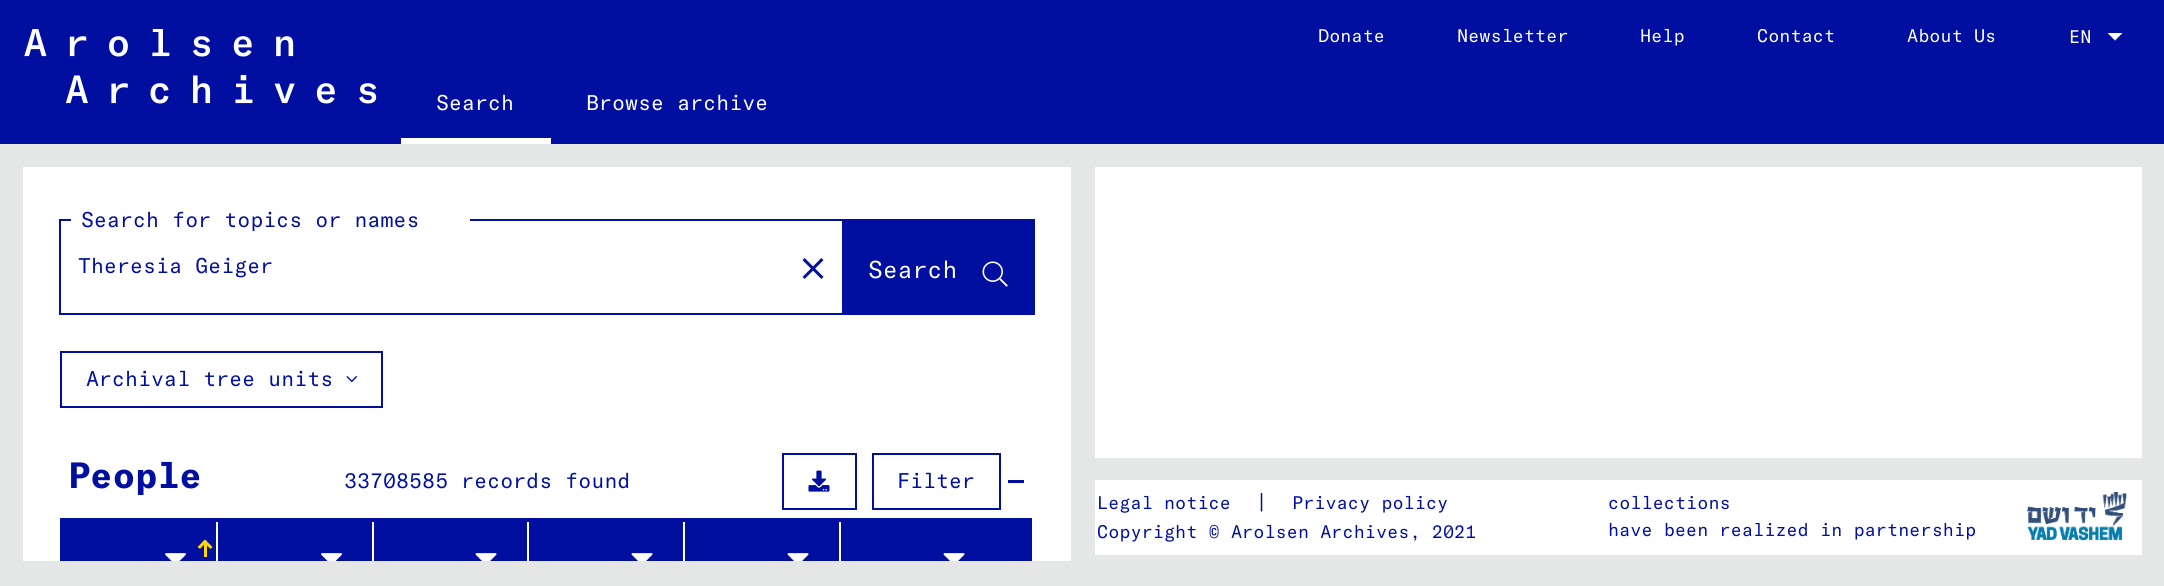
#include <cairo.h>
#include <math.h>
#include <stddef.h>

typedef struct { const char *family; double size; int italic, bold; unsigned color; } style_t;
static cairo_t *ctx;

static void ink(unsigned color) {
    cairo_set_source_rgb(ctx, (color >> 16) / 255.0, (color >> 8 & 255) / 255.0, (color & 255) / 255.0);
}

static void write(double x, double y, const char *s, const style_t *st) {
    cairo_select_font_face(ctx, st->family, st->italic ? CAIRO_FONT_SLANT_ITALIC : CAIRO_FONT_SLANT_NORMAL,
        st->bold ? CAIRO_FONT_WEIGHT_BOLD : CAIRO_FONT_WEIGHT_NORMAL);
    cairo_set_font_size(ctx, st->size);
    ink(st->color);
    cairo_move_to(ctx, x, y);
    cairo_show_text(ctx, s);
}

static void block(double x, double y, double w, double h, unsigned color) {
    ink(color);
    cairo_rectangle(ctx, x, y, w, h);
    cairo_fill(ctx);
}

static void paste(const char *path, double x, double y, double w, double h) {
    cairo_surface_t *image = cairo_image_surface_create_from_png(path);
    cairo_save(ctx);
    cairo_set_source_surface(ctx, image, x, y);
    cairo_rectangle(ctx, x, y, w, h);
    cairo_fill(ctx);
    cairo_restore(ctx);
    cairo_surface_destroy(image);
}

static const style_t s1 = {"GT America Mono", 21, 0, 0, 0xffffff};
static const style_t s2 = {"GT America Mono", 18, 0, 0, 0xffffff};
static const style_t s3 = {"GT America Mono", 21, 0, 0, 0x000fa0};
static const style_t s4 = {"GT America Mono", 24, 0, 0, 0xffffff};
static const style_t s5 = {"GT America Mono", 36, 0, 1, 0x000fa0};
static const style_t s6 = {"GT America Mono", 18, 0, 0, 0x000fa0};

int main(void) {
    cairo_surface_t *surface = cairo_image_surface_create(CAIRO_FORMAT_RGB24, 2164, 586);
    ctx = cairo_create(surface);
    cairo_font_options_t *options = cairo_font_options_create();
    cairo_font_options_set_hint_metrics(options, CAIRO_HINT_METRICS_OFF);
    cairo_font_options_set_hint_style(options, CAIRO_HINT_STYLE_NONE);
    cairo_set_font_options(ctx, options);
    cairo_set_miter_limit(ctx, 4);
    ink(0xe5e6e6);
    cairo_paint(ctx);
    block(0, 0, 2164, 144, 0x000fa0);
    paste("pic1.png", 24, 29, 353, 75);
    block(401, 138, 150, 6, 0xffffff);
    write(436, 110, "Search", &s1);
    write(586, 110, "Browse archive", &s1);
    write(1318, 42, "Donate", &s2);
    write(1457, 42, "Newsletter", &s2);
    write(1640, 42, "Help", &s2);
    write(1757, 42, "Contact", &s2);
    write(1907, 42, "About Us", &s2);
    write(2069, 43, "EN", &s2);
    cairo_new_path(ctx);
    cairo_move_to(ctx, 2107.5, 33);
    cairo_line_to(ctx, 2122.5, 33);
    cairo_line_to(ctx, 2115, 40.5);
    cairo_close_path(ctx);
    cairo_fill(ctx);
    block(23, 167, 1048, 394, 0xffffff);
    cairo_rectangle(ctx, 60, 220, 784, 94);
    ink(0x000fa0);
    cairo_stroke(ctx);
    block(71, 219, 399, 2, 0xffffff);
    write(81, 227, "Search for topics or names", &s3);
    write(78, 273, "Theresia Geiger", &s3);
    paste("pic2.png", 802, 258, 22, 21);
    cairo_rectangle(ctx, 843, 220, 191, 94);
    cairo_stroke(ctx);
    block(845, 221, 188, 92, 0x000fa0);
    write(868, 278, "Search", &s4);
    paste("pic3.png", 982, 261, 26, 26);
    cairo_rectangle(ctx, 61, 352, 321, 55);
    ink(0x000fa0);
    cairo_stroke(ctx);
    write(86, 386, "Archival tree units", &s3);
    paste("pic4.png", 346, 376, 11, 7);
    block(60, 518, 972, 4, 0x000fa0);
    write(68, 488, "People", &s5);
    write(344, 488, "33708585 records found", &s3);
    cairo_rectangle(ctx, 783, 454, 73, 55);
    cairo_stroke(ctx);
    paste("pic5.png", 808, 470, 22, 22);
    cairo_rectangle(ctx, 873, 454, 127, 55);
    cairo_stroke(ctx);
    write(897, 488, "Filter", &s3);
    block(1008, 480, 16, 3, 0x000fa0);
    cairo_save(ctx);
    cairo_rectangle(ctx, 23, 167, 1048, 394);
    cairo_clip(ctx);
    cairo_rectangle(ctx, 61, 523, 970, 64);
    cairo_stroke(ctx);
    cairo_restore(ctx);
    block(62, 524, 968, 37, 0x000fa0);
    block(216, 522, 2, 39, 0xffffff);
    paste("pic6.png", 165, 553, 21, 8);
    block(204, 542, 3, 15, 0xffd700);
    cairo_new_path(ctx);
    cairo_move_to(ctx, 197.5, 547);
    cairo_line_to(ctx, 204, 540.5);
    cairo_line_to(ctx, 206, 542.5);
    cairo_line_to(ctx, 200, 549);
    cairo_close_path(ctx);
    cairo_fill(ctx);
    cairo_new_path(ctx);
    cairo_move_to(ctx, 206, 540.5);
    cairo_line_to(ctx, 212.5, 547);
    cairo_line_to(ctx, 210.5, 549);
    cairo_line_to(ctx, 204, 542.5);
    cairo_close_path(ctx);
    cairo_fill(ctx);
    cairo_new_path(ctx);
    cairo_move_to(ctx, 205, 539.5);
    cairo_line_to(ctx, 207, 541.5);
    cairo_line_to(ctx, 205, 543.5);
    cairo_line_to(ctx, 203, 541.5);
    cairo_close_path(ctx);
    cairo_fill(ctx);
    block(372, 522, 2, 39, 0xffffff);
    paste("pic6.png", 321, 553, 21, 8);
    block(527, 522, 2, 39, 0xffffff);
    paste("pic7.png", 475, 553, 22, 8);
    block(683, 522, 2, 39, 0xffffff);
    paste("pic7.png", 631, 553, 22, 8);
    block(839, 522, 2, 39, 0xffffff);
    paste("pic7.png", 787, 553, 22, 8);
    paste("pic7.png", 943, 553, 22, 8);
    block(1095, 167, 1047, 291, 0xffffff);
    block(1095, 480, 1047, 75, 0xffffff);
    write(1097, 509, "Legal notice", &s6);
    write(1255, 509, "|", &s3);
    write(1292, 509, "Privacy policy", &s6);
    write(1097, 538, "Copyright © Arolsen Archives, 2021", &s6);
    write(1608, 509, "collections", &s6);
    write(1608, 536, "have been realized in partnership", &s6);
    paste("pic8.png", 2027, 491, 100, 50);
    cairo_surface_write_to_png(surface, "screenshot.png");
    cairo_font_options_destroy(options);
    cairo_destroy(ctx);
    cairo_surface_destroy(surface);
    return 0;
}
